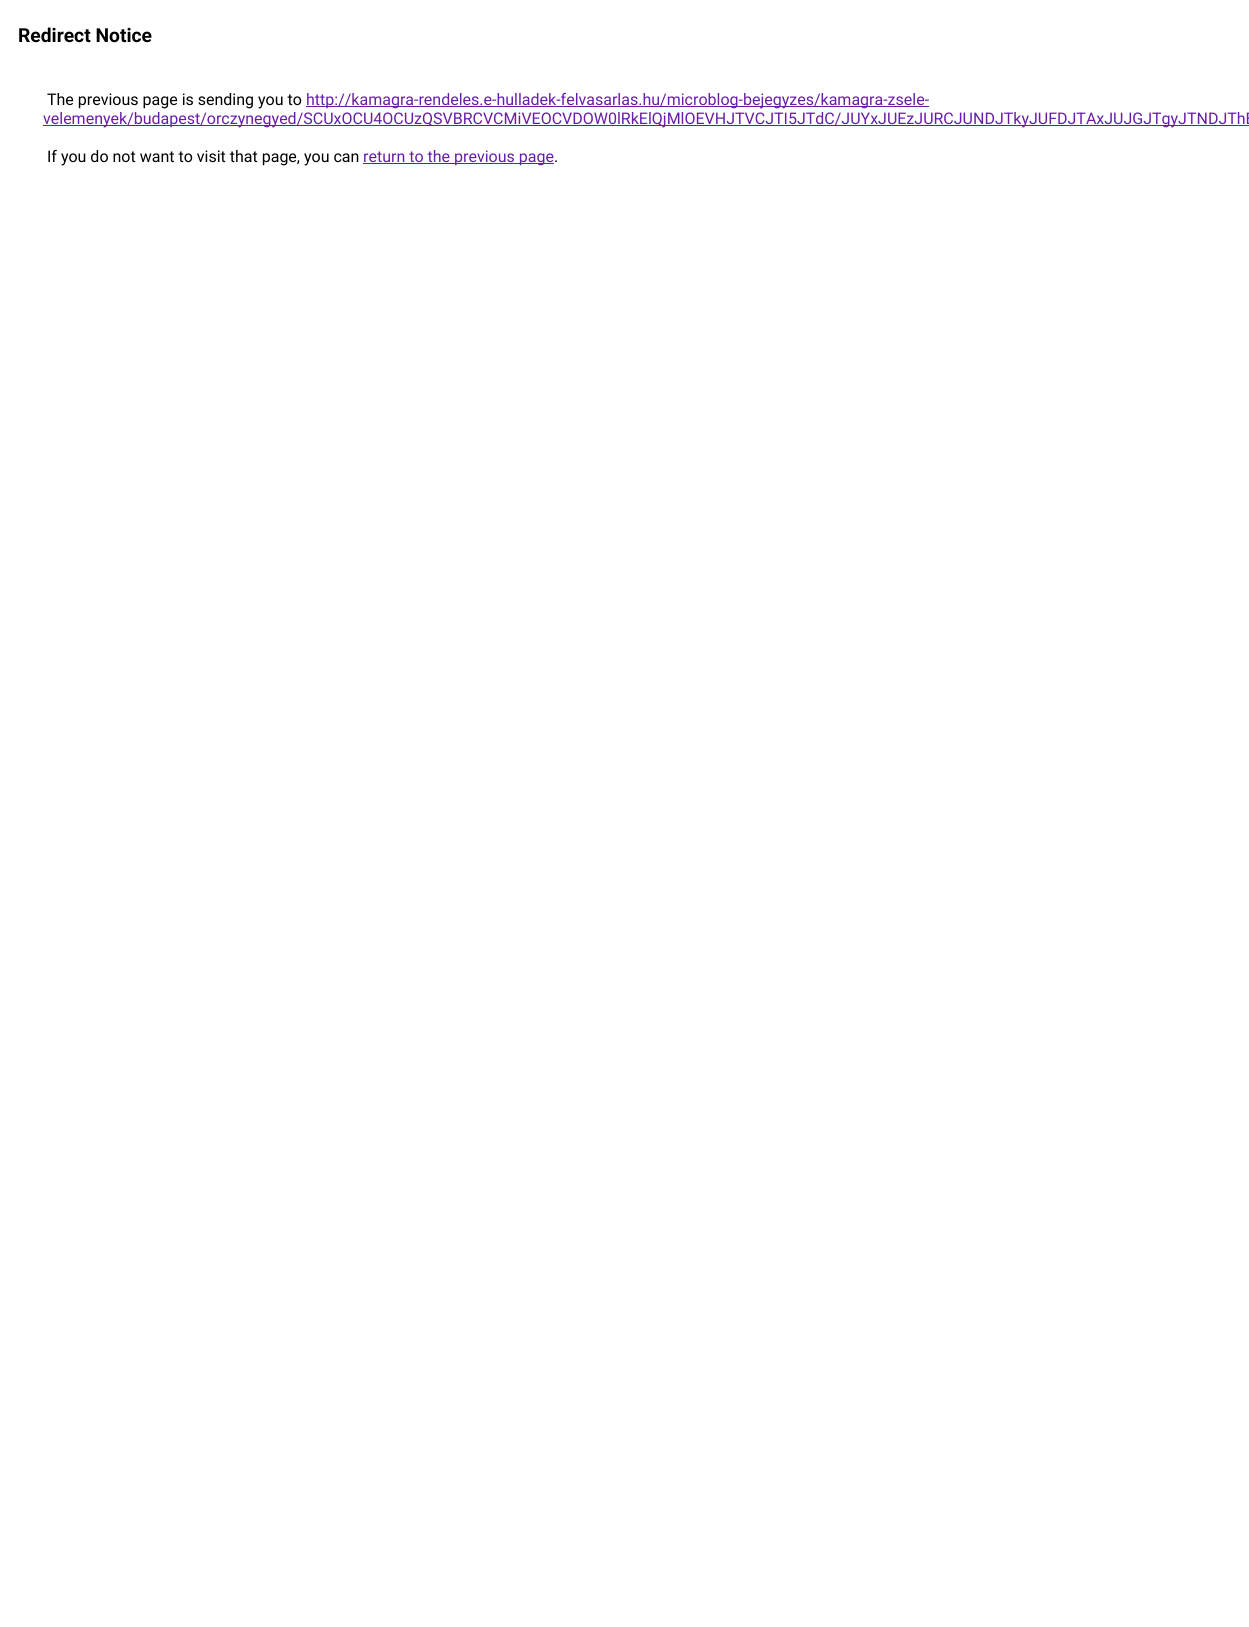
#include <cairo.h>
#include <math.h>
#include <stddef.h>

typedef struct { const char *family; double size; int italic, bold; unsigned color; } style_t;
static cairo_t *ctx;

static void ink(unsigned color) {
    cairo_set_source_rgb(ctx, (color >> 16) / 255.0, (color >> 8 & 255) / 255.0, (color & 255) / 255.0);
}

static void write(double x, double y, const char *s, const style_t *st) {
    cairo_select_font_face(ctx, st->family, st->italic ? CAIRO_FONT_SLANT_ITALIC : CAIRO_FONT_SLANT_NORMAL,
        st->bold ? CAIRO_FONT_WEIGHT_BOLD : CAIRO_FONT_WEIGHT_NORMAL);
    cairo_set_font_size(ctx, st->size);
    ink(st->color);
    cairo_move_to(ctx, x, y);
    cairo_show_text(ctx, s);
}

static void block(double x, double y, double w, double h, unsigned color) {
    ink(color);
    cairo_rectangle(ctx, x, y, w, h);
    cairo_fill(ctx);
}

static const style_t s1 = {"Roboto", 19.25, 0, 1, 0x000000};
static const style_t s2 = {"Roboto", 16, 0, 0, 0x000000};
static const style_t s3 = {"Roboto", 16, 0, 0, 0x681da8};

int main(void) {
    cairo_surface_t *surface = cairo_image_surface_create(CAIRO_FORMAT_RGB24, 1249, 1627);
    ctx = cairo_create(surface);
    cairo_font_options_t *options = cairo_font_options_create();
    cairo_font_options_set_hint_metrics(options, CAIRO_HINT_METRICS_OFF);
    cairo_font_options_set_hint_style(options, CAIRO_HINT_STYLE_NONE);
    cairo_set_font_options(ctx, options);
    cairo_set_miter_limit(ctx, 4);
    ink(0xffffff);
    cairo_paint(ctx);
    write(18, 42, "Redirect Notice", &s1);
    write(47, 105, "The previous page is sending you to", &s2);
    block(306, 106, 623, 1, 0x681da8);
    write(306, 105, "http://kamagra-rendeles.e-hulladek-felvasarlas.hu/microblog-bejegyzes/kamagra-zsele-", &s3);
    block(43, 125, 1206, 1, 0x681da8);
    write(43, 124, "velemenyek/budapest/orczynegyed/SCUxOCU4OCUzQSVBRCVCMiVEOCVDOW0lRkElQjMlOEVHJTVCJTI5JTdC/JUYxJUEzJURCJUNDJTkyJUFDJTAxJUJGJTgyJTNDJThB", &s3);
    write(47, 162, "If you do not want to visit that page, you can", &s2);
    block(363, 163, 191, 1, 0x681da8);
    write(363, 162, "return to the previous page", &s3);
    write(554, 162, ".", &s2);
    cairo_surface_write_to_png(surface, "screenshot.png");
    cairo_font_options_destroy(options);
    cairo_destroy(ctx);
    cairo_surface_destroy(surface);
    return 0;
}
